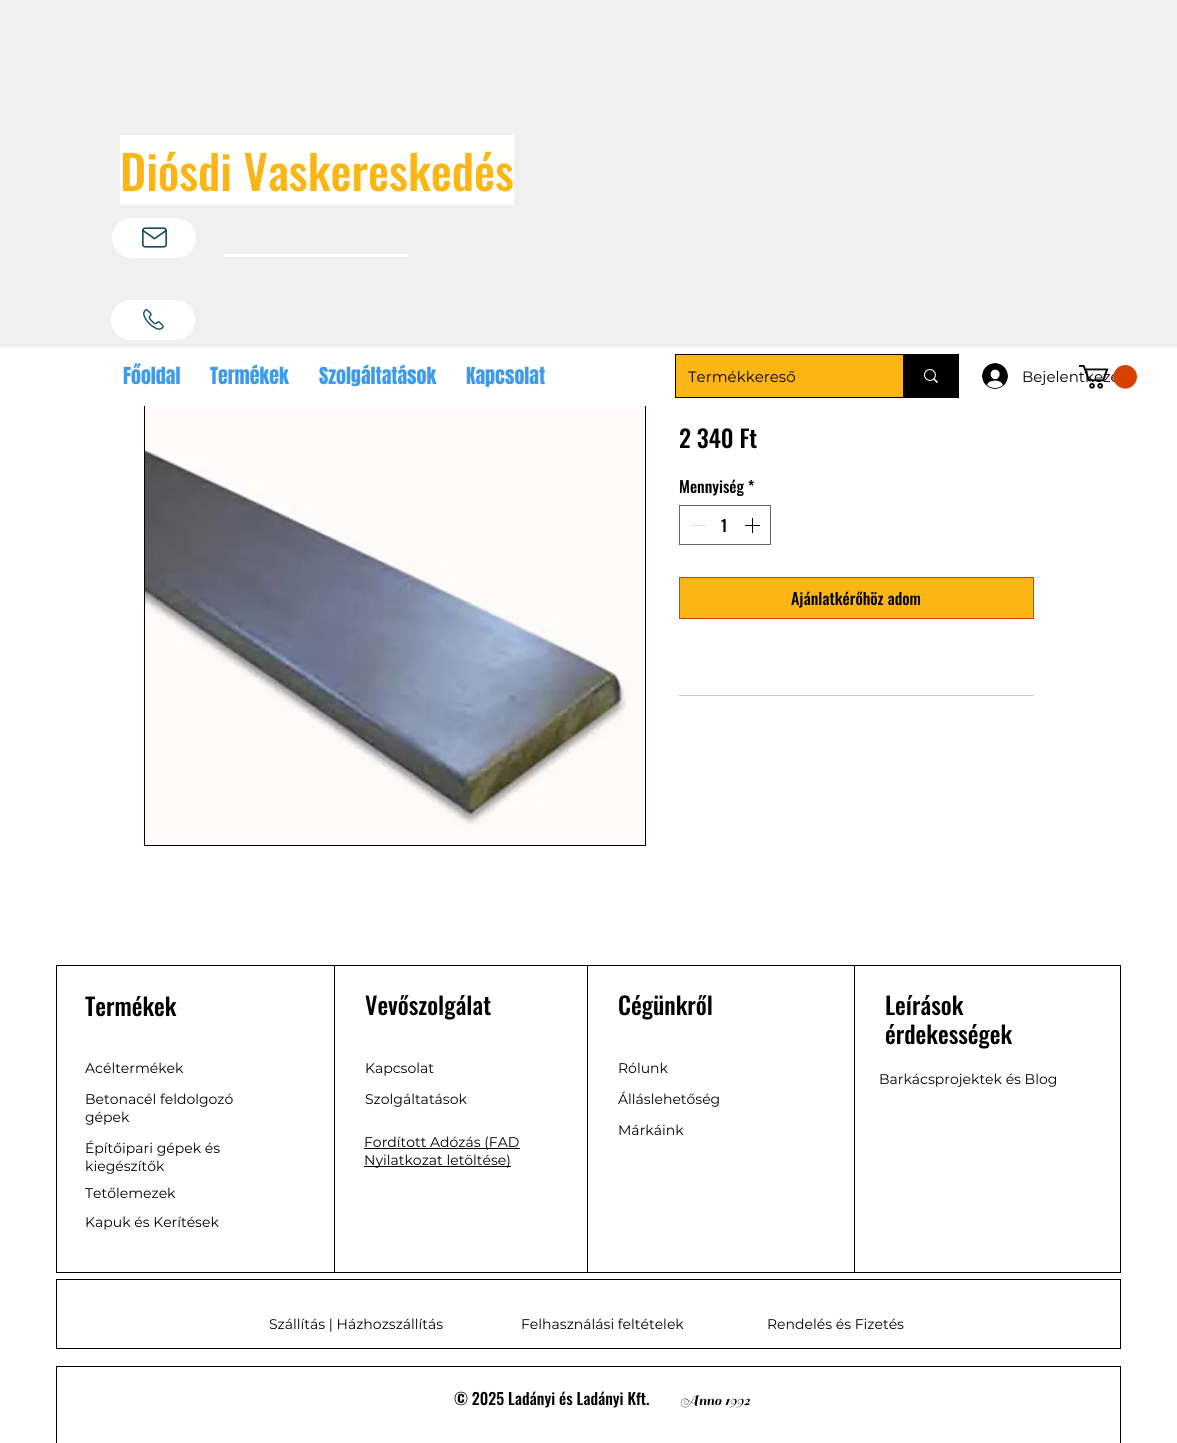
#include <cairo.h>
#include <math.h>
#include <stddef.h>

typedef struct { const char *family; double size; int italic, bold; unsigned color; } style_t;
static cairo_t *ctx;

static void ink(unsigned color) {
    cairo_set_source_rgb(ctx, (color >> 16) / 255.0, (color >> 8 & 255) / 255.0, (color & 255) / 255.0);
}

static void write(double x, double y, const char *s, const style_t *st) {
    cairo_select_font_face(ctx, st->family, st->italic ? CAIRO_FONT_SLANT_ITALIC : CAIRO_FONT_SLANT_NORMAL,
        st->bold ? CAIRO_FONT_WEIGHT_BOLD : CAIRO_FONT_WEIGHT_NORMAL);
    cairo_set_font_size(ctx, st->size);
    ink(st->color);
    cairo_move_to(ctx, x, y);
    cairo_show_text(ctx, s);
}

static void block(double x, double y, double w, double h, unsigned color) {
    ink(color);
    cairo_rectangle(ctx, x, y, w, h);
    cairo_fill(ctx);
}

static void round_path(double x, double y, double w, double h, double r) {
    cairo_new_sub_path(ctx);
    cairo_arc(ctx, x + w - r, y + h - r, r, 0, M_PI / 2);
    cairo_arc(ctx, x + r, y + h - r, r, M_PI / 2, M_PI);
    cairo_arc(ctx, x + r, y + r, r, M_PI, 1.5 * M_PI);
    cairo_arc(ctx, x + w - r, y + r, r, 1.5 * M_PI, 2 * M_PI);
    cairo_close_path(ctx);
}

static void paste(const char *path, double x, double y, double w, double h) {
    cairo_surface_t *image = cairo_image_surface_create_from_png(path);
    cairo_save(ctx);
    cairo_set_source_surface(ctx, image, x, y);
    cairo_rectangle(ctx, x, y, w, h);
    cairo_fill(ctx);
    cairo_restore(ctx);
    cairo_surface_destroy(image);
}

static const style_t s1 = {"Oswald Medium", 47, 0, 0, 0xfbb615};
static const style_t s2 = {"Anton", 20, 0, 0, 0x3d9be9};
static const style_t s3 = {"Montserrat", 15, 0, 0, 0x000000};
static const style_t s4 = {"Oswald Medium", 24, 0, 0, 0x000000};
static const style_t s5 = {"Oswald Medium", 16, 0, 0, 0x000000};
static const style_t s6 = {"Montserrat", 14, 0, 0, 0x000000};
static const style_t s7 = {"Sail", 16, 0, 0, 0x000000};

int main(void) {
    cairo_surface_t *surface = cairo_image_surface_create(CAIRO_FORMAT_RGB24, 1177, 1443);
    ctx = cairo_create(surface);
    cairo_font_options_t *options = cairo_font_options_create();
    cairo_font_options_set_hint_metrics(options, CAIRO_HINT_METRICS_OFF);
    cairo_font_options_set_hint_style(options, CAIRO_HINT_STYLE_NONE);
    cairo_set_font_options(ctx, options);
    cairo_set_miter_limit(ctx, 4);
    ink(0xffffff);
    cairo_paint(ctx);
    cairo_rectangle(ctx, 144.5, 344.5, 501, 501);
    ink(0x000000);
    cairo_set_line_width(ctx, 1);
    cairo_stroke(ctx);
    block(0, 0, 1177, 347, 0xf0f0f0);
    block(120, 135, 394, 70, 0xfffffe);
    write(120, 191, "Diósdi Vaskereskedés", &s1);
    ink(0xffffff);
    round_path(112, 218, 84, 40, 20);
    cairo_fill(ctx);
    paste("pic1.png", 142, 227, 25, 21);
    block(224, 254, 184, 3, 0xfffffe);
    ink(0xffffff);
    round_path(111, 300, 84, 40, 20);
    cairo_fill(ctx);
    paste("pic2.png", 143, 309, 21, 21);
    block(144, 347, 502, 59, 0xffffff);
    write(123, 384, "Főoldal", &s2);
    write(210, 384, "Termékek", &s2);
    write(319, 384, "Szolgáltatások", &s2);
    write(466, 384, "Kapcsolat", &s2);
    cairo_rectangle(ctx, 675.5, 354.5, 283, 43);
    ink(0x000000);
    cairo_stroke(ctx);
    block(676, 355, 227, 42, 0xfbb615);
    write(688, 382, "Termékkereső", &s3);
    block(903, 355, 55, 42, 0x000000);
    paste("pic3.png", 924, 369, 14, 14);
    write(1022, 382, "Bejelentkezé", &s3);
    paste("pic4.png", 1079, 365, 58, 24);
    paste("pic5.png", 982, 363, 26, 26);
    paste("pic6.png", 145, 406, 500, 439);
    write(679, 448, "2 340 Ft", &s4);
    write(679, 493, "Mennyiség *", &s5);
    cairo_rectangle(ctx, 679.5, 505.5, 91, 39);
    ink(0x666666);
    cairo_stroke(ctx);
    block(691, 525, 15, 1, 0xe3e3e3);
    write(721, 532, "1", &s5);
    paste("pic7.png", 745, 518, 15, 15);
    ink(0xfbb615);
    cairo_rectangle(ctx, 679.5, 577.5, 354, 41);
    cairo_fill_preserve(ctx);
    ink(0xd64000);
    cairo_stroke(ctx);
    write(791, 605, "Ajánlatkérőhöz adom", &s5);
    block(679, 695, 355, 1, 0xcccccc);
    block(56, 965, 1065, 308, 0x000000);
    block(57, 966, 277, 306, 0xffffff);
    write(85, 1016, "Termékek", &s4);
    write(85, 1073, "Acéltermékek", &s6);
    write(85, 1104, "Betonacél feldolgozó", &s6);
    write(85, 1122, "gépek", &s6);
    write(85, 1153, "Építőipari gépek és", &s6);
    write(85, 1171, "kiegészítők", &s6);
    write(85, 1198, "Tetőlemezek", &s6);
    write(85, 1227, "Kapuk és Kerítések", &s6);
    block(335, 966, 252, 306, 0xffffff);
    write(365, 1015, "Vevőszolgálat", &s4);
    write(365, 1073, "Kapcsolat", &s6);
    write(365, 1104, "Szolgáltatások", &s6);
    block(364, 1148, 156, 1, 0x000000);
    write(364, 1147, "Fordított Adózás (FAD", &s6);
    block(364, 1166, 147, 1, 0x000000);
    write(364, 1165, "Nyilatkozat letöltése)", &s6);
    block(588, 966, 266, 306, 0xffffff);
    write(618, 1015, "Cégünkről", &s4);
    write(618, 1073, "Rólunk", &s6);
    write(618, 1104, "Álláslehetőség", &s6);
    write(618, 1135, "Márkáink", &s6);
    block(855, 966, 265, 306, 0xffffff);
    write(885, 1015, "Leírások", &s4);
    write(885, 1044, "érdekességek", &s4);
    write(879, 1084, "Barkácsprojektek és Blog", &s6);
    block(56, 1279, 1065, 70, 0x000000);
    block(57, 1280, 1063, 68, 0xffffff);
    write(269, 1329, "Szállítás | Házhozszállítás", &s6);
    write(521, 1329, "Felhasználási feltételek", &s6);
    write(767, 1329, "Rendelés és Fizetés", &s6);
    block(56, 1366, 1065, 77, 0x000000);
    block(57, 1367, 1063, 76, 0xffffff);
    write(454, 1405, "© 2025 Ladányi és Ladányi Kft.", &s5);
    write(680, 1405, "Anno 1992", &s7);
    cairo_surface_write_to_png(surface, "screenshot.png");
    cairo_font_options_destroy(options);
    cairo_destroy(ctx);
    cairo_surface_destroy(surface);
    return 0;
}
